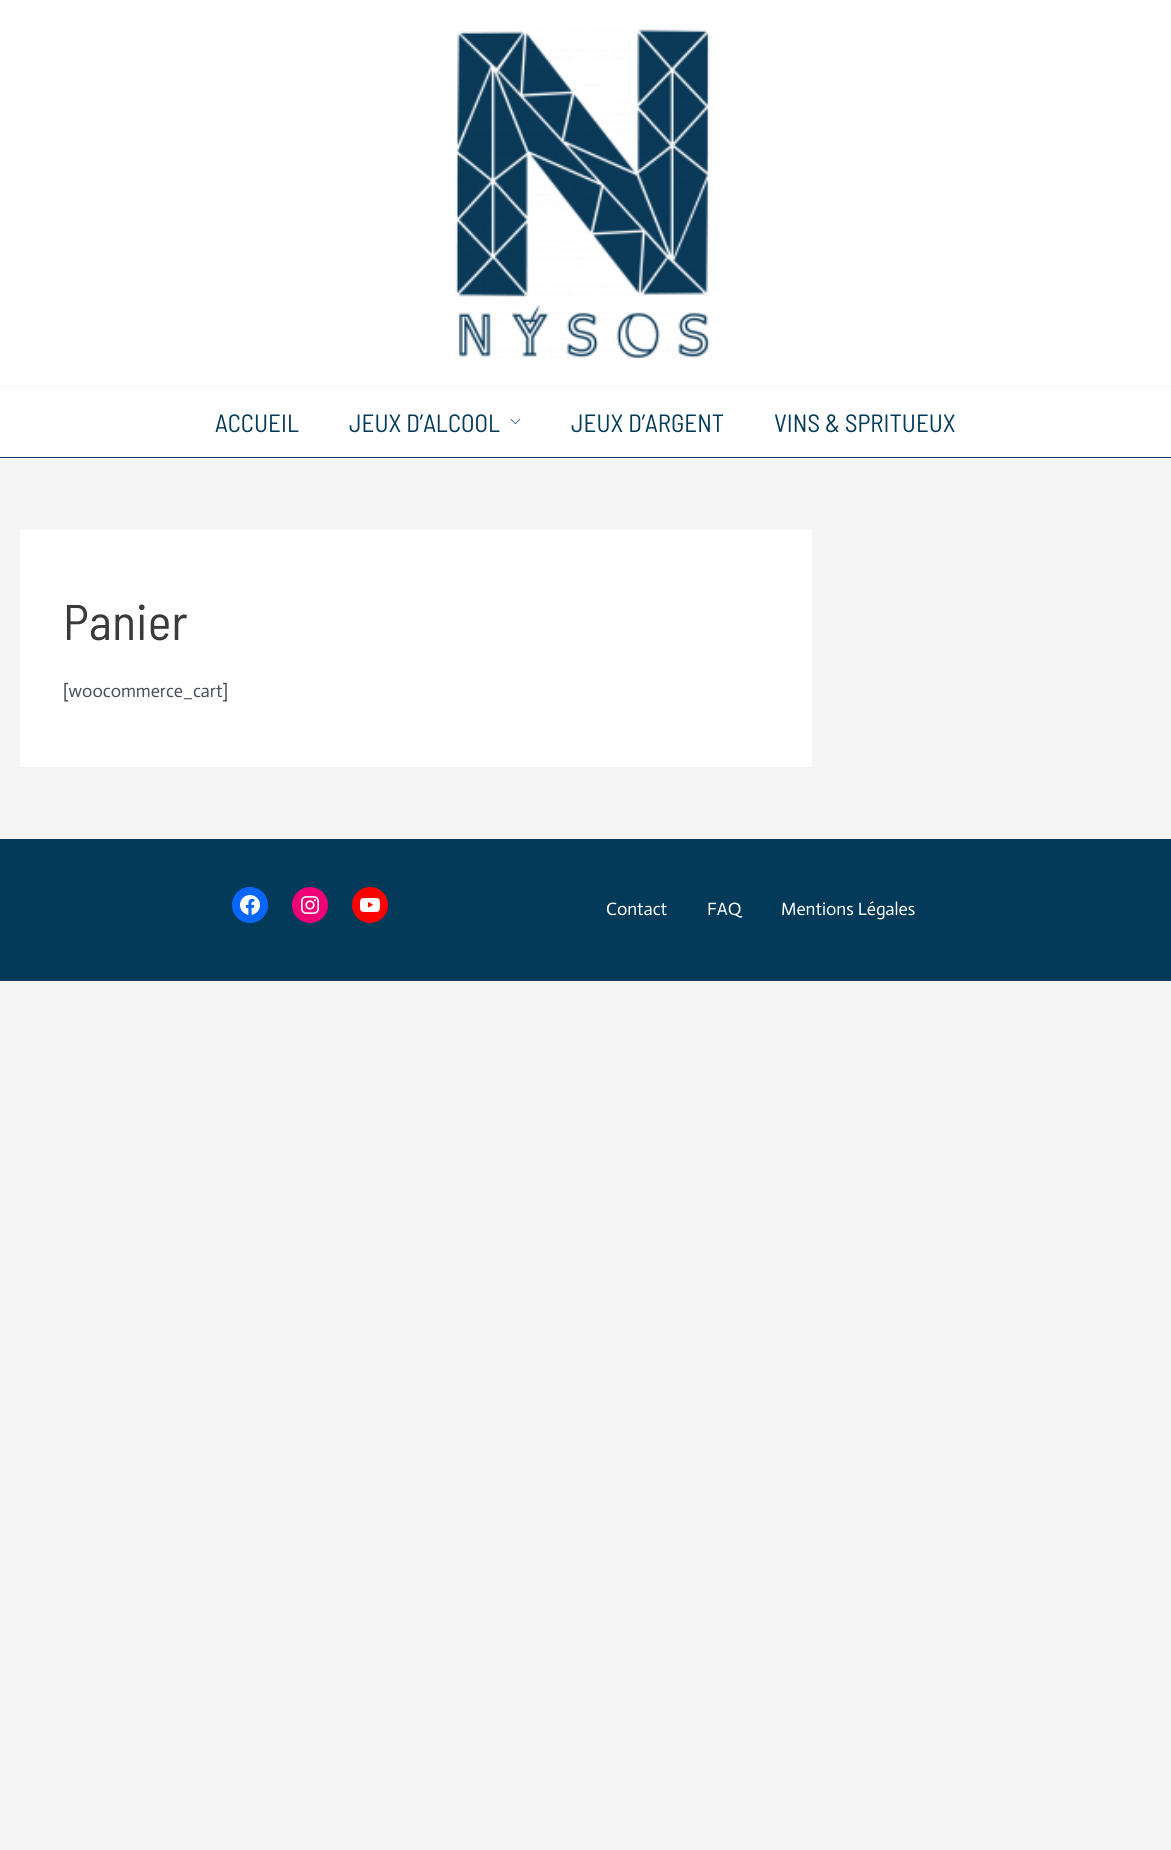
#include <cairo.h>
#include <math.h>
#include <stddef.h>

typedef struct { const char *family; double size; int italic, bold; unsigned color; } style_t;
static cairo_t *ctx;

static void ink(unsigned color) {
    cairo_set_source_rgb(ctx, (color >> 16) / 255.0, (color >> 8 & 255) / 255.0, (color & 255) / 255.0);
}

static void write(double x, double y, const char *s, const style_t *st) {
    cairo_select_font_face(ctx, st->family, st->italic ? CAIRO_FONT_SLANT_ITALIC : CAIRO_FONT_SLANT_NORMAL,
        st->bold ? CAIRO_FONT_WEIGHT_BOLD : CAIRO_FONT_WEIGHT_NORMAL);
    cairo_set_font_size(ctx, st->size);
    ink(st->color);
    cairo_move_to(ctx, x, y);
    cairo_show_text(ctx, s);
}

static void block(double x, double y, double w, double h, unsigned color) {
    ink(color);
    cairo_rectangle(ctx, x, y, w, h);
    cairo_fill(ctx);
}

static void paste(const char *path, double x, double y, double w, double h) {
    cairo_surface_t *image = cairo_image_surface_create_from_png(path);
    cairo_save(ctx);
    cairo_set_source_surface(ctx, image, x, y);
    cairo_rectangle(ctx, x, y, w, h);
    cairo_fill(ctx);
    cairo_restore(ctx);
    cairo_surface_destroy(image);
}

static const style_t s1 = {"Barlow Semi Condensed", 25, 0, 0, 0x033a5a};
static const style_t s2 = {"Barlow Semi Condensed", 50, 0, 0, 0x3a3a3a};
static const style_t s3 = {"Actor", 18, 0, 0, 0x4b4f58};
static const style_t s4 = {"Actor", 18, 0, 0, 0xffffff};

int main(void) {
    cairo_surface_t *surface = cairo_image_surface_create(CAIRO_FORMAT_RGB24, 1171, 1850);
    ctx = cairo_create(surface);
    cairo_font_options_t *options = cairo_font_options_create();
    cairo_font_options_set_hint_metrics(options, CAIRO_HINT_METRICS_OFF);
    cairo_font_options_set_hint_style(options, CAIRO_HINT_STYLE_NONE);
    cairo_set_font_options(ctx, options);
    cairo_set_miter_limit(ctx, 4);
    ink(0xf5f5f5);
    cairo_paint(ctx);
    block(0, 0, 1171, 386, 0xffffff);
    block(0, 386, 1171, 1, 0xf2f5f7);
    paste("pic1.png", 455, 29, 255, 330);
    block(0, 387, 1171, 70, 0xffffff);
    block(0, 457, 1171, 1, 0x033a5a);
    write(215, 432, "ACCUEIL", &s1);
    write(349, 432, "JEUX D’ALCOOL", &s1);
    paste("pic2.png", 510, 418, 11, 7);
    write(571, 432, "JEUX D’ARGENT", &s1);
    write(774, 432, "VINS & SPRITUEUX", &s1);
    block(20, 530, 792, 237, 0xffffff);
    write(63, 640, "Panier", &s2);
    write(63, 697, "[woocommerce_cart]", &s3);
    block(0, 839, 1171, 142, 0x033a5a);
    ink(0x0866ff);
    cairo_new_path(ctx);
    cairo_arc(ctx, 250, 905, 18, 0, 2 * M_PI);
    cairo_fill(ctx);
    paste("pic3.png", 240, 895, 20, 20);
    ink(0xf00075);
    cairo_arc(ctx, 310, 905, 18, 0, 2 * M_PI);
    cairo_fill(ctx);
    paste("pic4.png", 301, 896, 18, 18);
    ink(0xff0000);
    cairo_arc(ctx, 370, 905, 18, 0, 2 * M_PI);
    cairo_fill(ctx);
    paste("pic5.png", 360, 898, 20, 14);
    write(606, 915, "Contact", &s4);
    write(707, 915, "FAQ", &s4);
    write(781, 915, "Mentions Légales", &s4);
    cairo_surface_write_to_png(surface, "screenshot.png");
    cairo_font_options_destroy(options);
    cairo_destroy(ctx);
    cairo_surface_destroy(surface);
    return 0;
}
